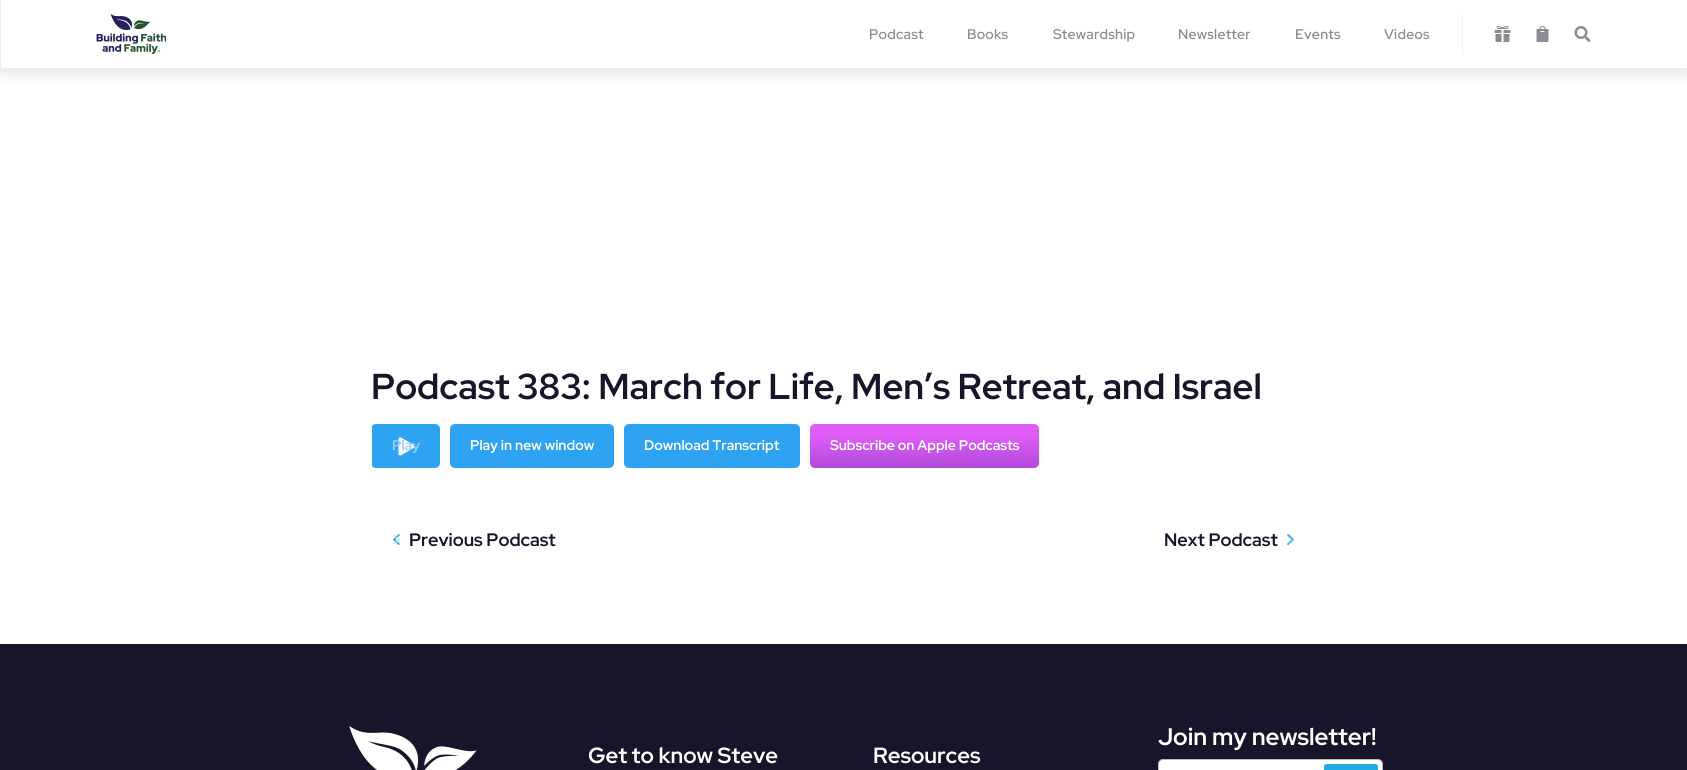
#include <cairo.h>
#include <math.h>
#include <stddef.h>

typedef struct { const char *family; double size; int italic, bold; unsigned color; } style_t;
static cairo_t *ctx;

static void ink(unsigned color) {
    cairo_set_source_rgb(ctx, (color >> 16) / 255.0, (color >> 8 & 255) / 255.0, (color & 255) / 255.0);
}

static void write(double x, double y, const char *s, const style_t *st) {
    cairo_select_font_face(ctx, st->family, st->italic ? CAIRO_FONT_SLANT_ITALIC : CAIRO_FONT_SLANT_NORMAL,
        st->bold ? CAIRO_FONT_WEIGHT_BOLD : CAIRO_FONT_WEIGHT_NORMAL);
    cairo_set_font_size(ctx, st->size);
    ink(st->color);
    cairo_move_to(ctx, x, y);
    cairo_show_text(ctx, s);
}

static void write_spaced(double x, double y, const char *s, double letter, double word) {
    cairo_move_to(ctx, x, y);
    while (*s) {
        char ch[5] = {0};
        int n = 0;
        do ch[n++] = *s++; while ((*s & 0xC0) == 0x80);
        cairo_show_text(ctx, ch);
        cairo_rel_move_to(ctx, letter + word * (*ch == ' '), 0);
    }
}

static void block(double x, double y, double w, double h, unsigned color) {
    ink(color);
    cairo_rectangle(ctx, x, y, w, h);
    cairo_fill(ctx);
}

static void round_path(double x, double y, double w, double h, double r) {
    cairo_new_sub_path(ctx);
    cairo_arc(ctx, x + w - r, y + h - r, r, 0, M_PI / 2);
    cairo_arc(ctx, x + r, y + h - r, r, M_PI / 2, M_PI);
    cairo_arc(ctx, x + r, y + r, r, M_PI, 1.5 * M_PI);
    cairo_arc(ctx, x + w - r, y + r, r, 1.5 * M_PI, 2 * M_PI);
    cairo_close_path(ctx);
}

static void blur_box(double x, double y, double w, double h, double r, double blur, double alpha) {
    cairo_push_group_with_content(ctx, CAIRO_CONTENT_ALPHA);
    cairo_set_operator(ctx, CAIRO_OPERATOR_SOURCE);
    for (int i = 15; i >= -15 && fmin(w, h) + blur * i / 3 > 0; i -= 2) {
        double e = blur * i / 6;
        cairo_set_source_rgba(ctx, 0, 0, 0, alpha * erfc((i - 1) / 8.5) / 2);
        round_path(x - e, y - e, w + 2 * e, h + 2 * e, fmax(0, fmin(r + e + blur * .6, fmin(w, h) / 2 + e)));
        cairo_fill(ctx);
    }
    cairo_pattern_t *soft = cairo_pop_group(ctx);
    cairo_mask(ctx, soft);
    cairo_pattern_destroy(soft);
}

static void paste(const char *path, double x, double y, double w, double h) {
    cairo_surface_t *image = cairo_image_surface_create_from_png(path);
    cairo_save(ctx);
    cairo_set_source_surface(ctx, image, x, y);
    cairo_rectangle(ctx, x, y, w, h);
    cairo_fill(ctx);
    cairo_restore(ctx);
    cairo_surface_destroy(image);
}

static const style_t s1 = {"Red Hat Display", 36, 0, 1, 0x161529};
static const style_t s2 = {"Red Hat Display", 14, 0, 1, 0x97d1f9};
static const style_t s3 = {"Red Hat Display", 14, 0, 1, 0xffffff};
static const style_t s4 = {"Red Hat Display", 18, 0, 1, 0x161529};
static const style_t s5 = {"Red Hat Display Medium", 18, 0, 0, 0xc2e8f7};
static const style_t s6 = {"Red Hat Display Medium", 18, 0, 0, 0x5fc2eb};
static const style_t s7 = {"Red Hat Display", 24, 0, 1, 0xffffff};
static const style_t s8 = {"Red Hat Display", 22, 0, 1, 0xffffff};

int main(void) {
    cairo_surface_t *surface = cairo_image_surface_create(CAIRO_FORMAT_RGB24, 1687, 770);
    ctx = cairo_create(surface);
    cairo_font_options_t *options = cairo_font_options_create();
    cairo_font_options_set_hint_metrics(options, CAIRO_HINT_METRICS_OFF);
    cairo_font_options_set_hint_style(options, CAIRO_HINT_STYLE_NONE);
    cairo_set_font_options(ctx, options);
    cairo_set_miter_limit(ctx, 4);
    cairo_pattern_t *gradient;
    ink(0xffffff);
    cairo_paint(ctx);
    cairo_save(ctx);
    cairo_set_fill_rule(ctx, CAIRO_FILL_RULE_EVEN_ODD);
    cairo_new_path(ctx);
    cairo_move_to(ctx, 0, 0);
    cairo_line_to(ctx, 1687, 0);
    cairo_line_to(ctx, 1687, 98);
    cairo_line_to(ctx, 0, 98);
    cairo_close_path(ctx);
    cairo_move_to(ctx, 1, 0);
    cairo_line_to(ctx, 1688, 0);
    cairo_line_to(ctx, 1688, 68);
    cairo_line_to(ctx, 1, 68);
    cairo_close_path(ctx);
    cairo_clip(ctx);
    ink(0x161529);
    blur_box(1, 2, 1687, 68, 0, 9, 0.16);
    cairo_restore(ctx);
    paste("pic1.png", 96, 14, 70, 40);
    cairo_select_font_face(ctx, "Red Hat Display SemiBold", CAIRO_FONT_SLANT_NORMAL, CAIRO_FONT_WEIGHT_NORMAL);
    cairo_set_font_size(ctx, 14);
    ink(0x8c8b95);
    write_spaced(869, 39, "Podcast", 0.25, 0);
    write_spaced(967, 39, "Books", 0.25, 0);
    write_spaced(1053, 39, "Stewardship", 0.25, 0);
    write_spaced(1178, 39, "Newsletter", 0.25, 0);
    write_spaced(1295, 39, "Events", 0.25, 0);
    write_spaced(1384, 39, "Videos", 0.25, 0);
    block(1462, 14, 1, 40, 0xf0f0f0);
    paste("pic2.png", 1494, 26, 17, 16);
    paste("pic3.png", 1536, 26, 13, 16);
    paste("pic4.png", 1574, 26, 17, 16);
    write(371, 399, "Podcast 383: March for Life, Men’s Retreat, and Israel", &s1);
    ink(0x2ea3f2);
    round_path(371, 424, 69, 44, 5);
    cairo_fill(ctx);
    paste("pic5.png", 398, 437, 17, 19);
    block(371, 427, 1, 39, 0xffffff);
    write(392, 450, "Play", &s2);
    ink(0x2ea3f2);
    round_path(450, 424, 164, 44, 5);
    cairo_fill(ctx);
    write(470, 450, "Play in new window", &s3);
    ink(0x2ea3f2);
    round_path(624, 424, 176, 44, 5);
    cairo_fill(ctx);
    write(644, 450, "Download Transcript", &s3);
    gradient = cairo_pattern_create_linear(925, 468, 925, 424);
    cairo_pattern_add_color_stop_rgba(gradient, 0, 0.694, 0.286, 0.859, 1);
    cairo_pattern_add_color_stop_rgba(gradient, 0.75, 0.875, 0.365, 0.965, 1);
    cairo_set_source(ctx, gradient);
    cairo_pattern_destroy(gradient);
    round_path(810, 424, 229, 44, 5);
    cairo_fill(ctx);
    write(830, 450, "Subscribe on Apple Podcasts", &s3);
    paste("pic6.png", 393, 534, 7, 11);
    write(409, 546, "Previous Podcast", &s4);
    write(391, 546, ">", &s5);
    write(1164, 546, "Next Podcast", &s4);
    paste("pic7.png", 1287, 534, 7, 11);
    write(1285, 546, ">", &s6);
    block(0, 644, 1687, 126, 0x161529);
    paste("pic8.png", 349, 726, 128, 44);
    write(1158, 745, "Join my newsletter!", &s7);
    round_path(1158.5, 759.5, 224, 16, 4.5);
    cairo_fill_preserve(ctx);
    ink(0xbbbbbb);
    cairo_set_line_width(ctx, 1);
    cairo_stroke(ctx);
    ink(0x23abe4);
    round_path(1324, 764, 54, 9, 2.5);
    cairo_fill(ctx);
    write(588, 763, "Get to know Steve", &s8);
    write(873, 763, "Resources", &s8);
    cairo_surface_write_to_png(surface, "screenshot.png");
    cairo_font_options_destroy(options);
    cairo_destroy(ctx);
    cairo_surface_destroy(surface);
    return 0;
}
